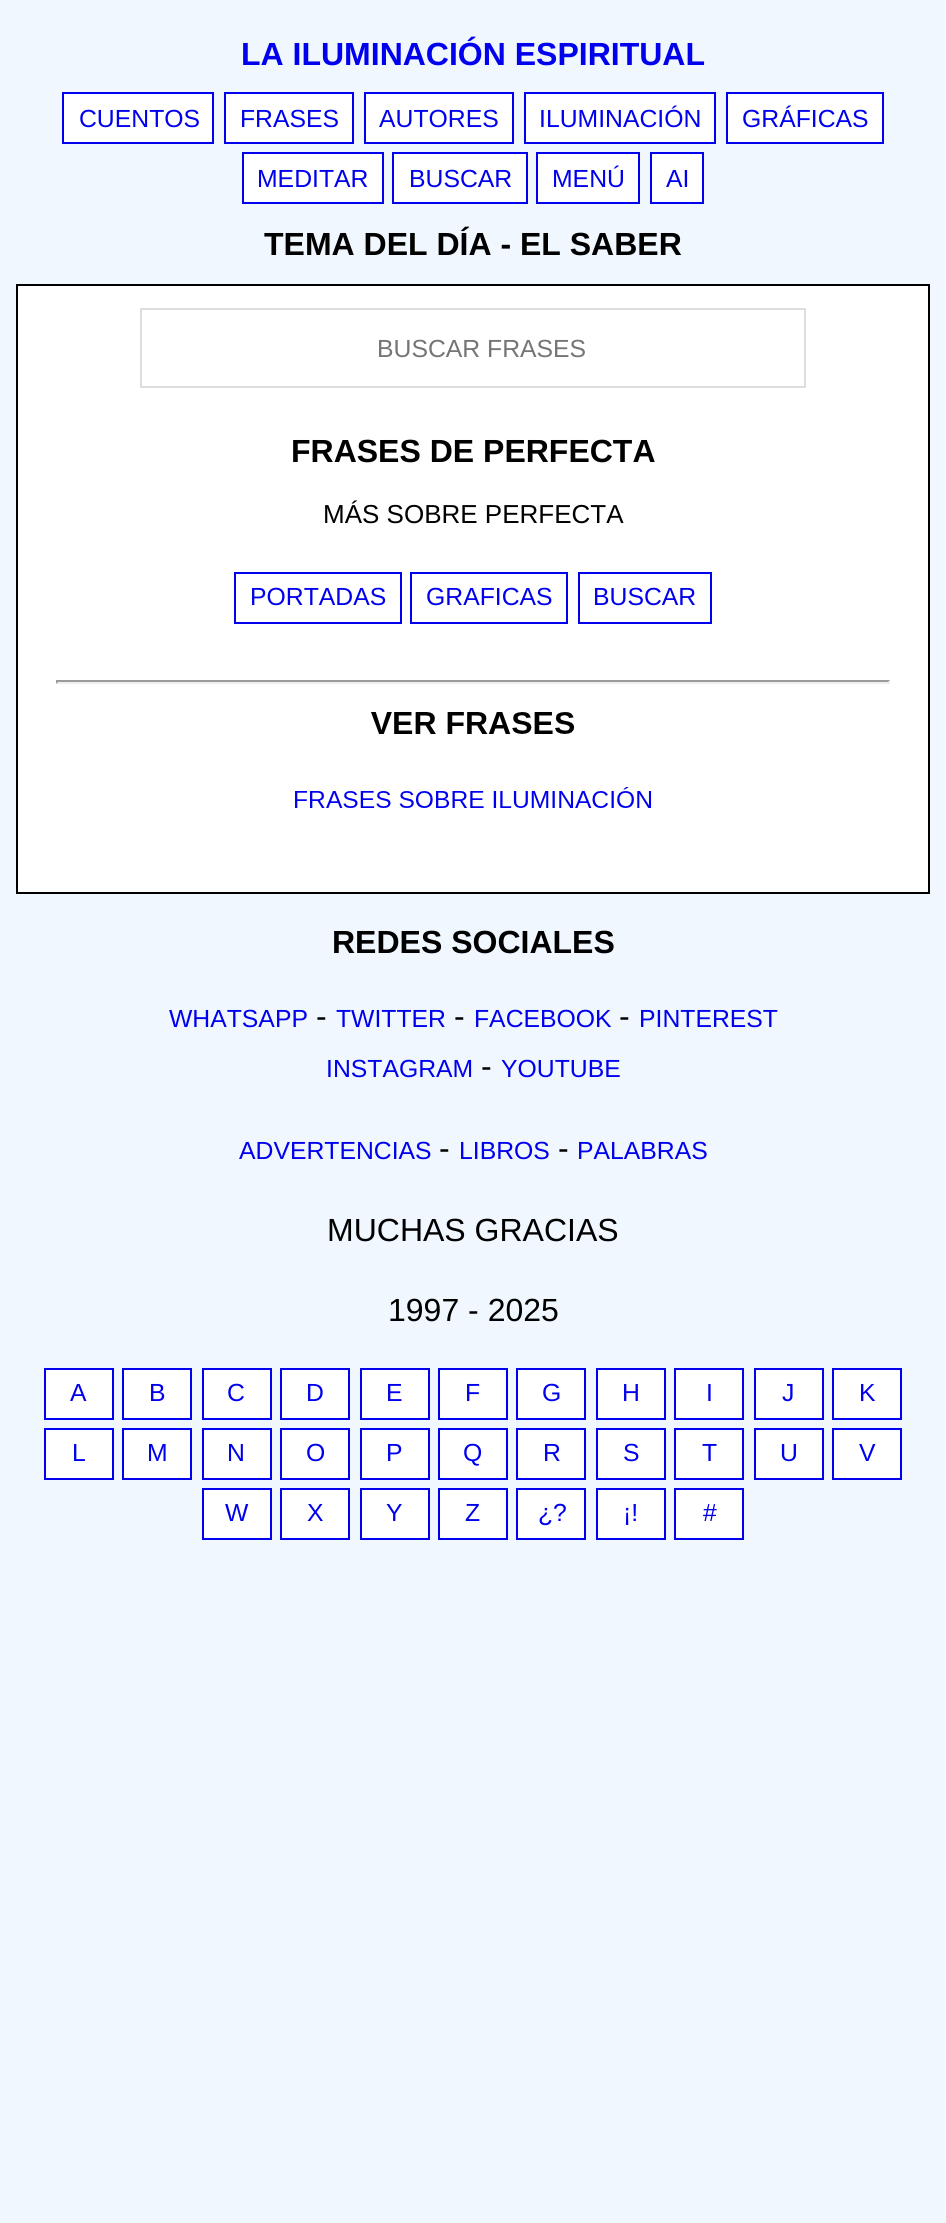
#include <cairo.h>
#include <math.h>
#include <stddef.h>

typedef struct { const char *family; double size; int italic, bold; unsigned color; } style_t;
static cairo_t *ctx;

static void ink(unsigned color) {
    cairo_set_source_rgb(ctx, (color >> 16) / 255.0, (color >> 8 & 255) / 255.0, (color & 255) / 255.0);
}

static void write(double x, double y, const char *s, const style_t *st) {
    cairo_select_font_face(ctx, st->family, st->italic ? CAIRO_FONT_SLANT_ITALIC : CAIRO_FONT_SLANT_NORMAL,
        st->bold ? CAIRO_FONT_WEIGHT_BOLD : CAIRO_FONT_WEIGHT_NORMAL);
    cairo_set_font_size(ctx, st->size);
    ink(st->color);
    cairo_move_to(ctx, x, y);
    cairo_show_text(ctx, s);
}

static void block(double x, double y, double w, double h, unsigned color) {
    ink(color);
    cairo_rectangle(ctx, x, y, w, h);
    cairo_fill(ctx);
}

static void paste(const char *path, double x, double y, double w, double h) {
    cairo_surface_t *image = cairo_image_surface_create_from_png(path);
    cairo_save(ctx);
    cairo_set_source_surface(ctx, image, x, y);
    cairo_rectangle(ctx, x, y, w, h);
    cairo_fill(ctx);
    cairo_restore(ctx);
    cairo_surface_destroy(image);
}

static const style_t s1 = {"Liberation Sans", 32, 0, 1, 0x0000ee};
static const style_t s2 = {"Liberation Sans", 24.75, 0, 0, 0x0000ee};
static const style_t s3 = {"Liberation Sans", 32, 0, 1, 0x000000};
static const style_t s4 = {"Liberation Sans", 24.75, 0, 0, 0x757575};
static const style_t s5 = {"Liberation Sans", 26, 0, 0, 0x000000};
static const style_t s6 = {"Liberation Sans", 32, 0, 0, 0x000000};

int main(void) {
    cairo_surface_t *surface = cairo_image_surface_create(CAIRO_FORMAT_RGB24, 946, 2223);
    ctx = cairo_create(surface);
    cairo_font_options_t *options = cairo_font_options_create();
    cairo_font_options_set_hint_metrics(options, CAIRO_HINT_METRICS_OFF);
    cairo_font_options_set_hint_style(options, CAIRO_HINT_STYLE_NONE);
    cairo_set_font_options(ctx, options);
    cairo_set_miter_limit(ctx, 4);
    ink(0xf0f7ff);
    cairo_paint(ctx);
    block(16, 284, 914, 2, 0x000000);
    write(241, 65, "LA ILUMINACIÓN ESPIRITUAL", &s1);
    ink(0xffffff);
    cairo_rectangle(ctx, 63, 93, 150, 50);
    cairo_fill_preserve(ctx);
    ink(0x0000ee);
    cairo_stroke(ctx);
    write(79, 127, "CUENTOS", &s2);
    ink(0xffffff);
    cairo_rectangle(ctx, 225, 93, 128, 50);
    cairo_fill_preserve(ctx);
    ink(0x0000ee);
    cairo_stroke(ctx);
    write(240, 127, "FRASES", &s2);
    ink(0xffffff);
    cairo_rectangle(ctx, 365, 93, 148, 50);
    cairo_fill_preserve(ctx);
    ink(0x0000ee);
    cairo_stroke(ctx);
    write(379, 127, "AUTORES", &s2);
    ink(0xffffff);
    cairo_rectangle(ctx, 525, 93, 190, 50);
    cairo_fill_preserve(ctx);
    ink(0x0000ee);
    cairo_stroke(ctx);
    write(539, 127, "ILUMINACIÓN", &s2);
    ink(0xffffff);
    cairo_rectangle(ctx, 727, 93, 156, 50);
    cairo_fill_preserve(ctx);
    ink(0x0000ee);
    cairo_stroke(ctx);
    write(742, 127, "GRÁFICAS", &s2);
    ink(0xffffff);
    cairo_rectangle(ctx, 243, 153, 140, 50);
    cairo_fill_preserve(ctx);
    ink(0x0000ee);
    cairo_stroke(ctx);
    write(257, 187, "MEDITAR", &s2);
    ink(0xffffff);
    cairo_rectangle(ctx, 393, 153, 134, 50);
    cairo_fill_preserve(ctx);
    ink(0x0000ee);
    cairo_stroke(ctx);
    write(409, 187, "BUSCAR", &s2);
    ink(0xffffff);
    cairo_rectangle(ctx, 537, 153, 102, 50);
    cairo_fill_preserve(ctx);
    ink(0x0000ee);
    cairo_stroke(ctx);
    write(552, 187, "MENÚ", &s2);
    ink(0xffffff);
    cairo_rectangle(ctx, 651, 153, 52, 50);
    cairo_fill_preserve(ctx);
    ink(0x0000ee);
    cairo_stroke(ctx);
    write(666, 187, "AI", &s2);
    write(264, 255, "TEMA DEL DÍA - EL SABER", &s3);
    block(18, 286, 910, 606, 0xffffff);
    block(928, 286, 2, 608, 0x000000);
    block(16, 892, 914, 2, 0x000000);
    block(16, 286, 2, 608, 0x000000);
    cairo_rectangle(ctx, 141, 309, 664, 78);
    ink(0xdddddd);
    cairo_stroke(ctx);
    write(377, 357, "BUSCAR FRASES", &s4);
    write(291, 462, "FRASES DE PERFECTA", &s3);
    write(323, 523, "MÁS SOBRE PERFECTA", &s5);
    cairo_rectangle(ctx, 235, 573, 166, 50);
    ink(0x0000ee);
    cairo_stroke(ctx);
    write(250, 605, "PORTADAS", &s2);
    cairo_rectangle(ctx, 411, 573, 156, 50);
    cairo_stroke(ctx);
    write(426, 605, "GRAFICAS", &s2);
    cairo_rectangle(ctx, 579, 573, 132, 50);
    cairo_stroke(ctx);
    write(593, 605, "BUSCAR", &s2);
    paste("pic1.png", 56, 680, 834, 128);
    write(332, 953, "REDES SOCIALES", &s3);
    write(169, 1027, "WHATSAPP", &s2);
    write(316, 1027, "-", &s6);
    write(336, 1027, "TWITTER", &s2);
    write(454, 1027, "-", &s6);
    write(474, 1027, "FACEBOOK", &s2);
    write(619, 1027, "-", &s6);
    write(639, 1027, "PINTEREST", &s2);
    write(326, 1077, "INSTAGRAM", &s2);
    write(481, 1077, "-", &s6);
    write(501, 1077, "YOUTUBE", &s2);
    write(239, 1159, "ADVERTENCIAS", &s2);
    write(439, 1159, "-", &s6);
    write(459, 1159, "LIBROS", &s2);
    write(558, 1159, "-", &s6);
    write(577, 1159, "PALABRAS", &s2);
    write(327, 1241, "MUCHAS GRACIAS", &s6);
    write(388, 1321, "1997 - 2025", &s6);
    ink(0xffffff);
    cairo_rectangle(ctx, 45, 1369, 68, 50);
    cairo_fill_preserve(ctx);
    ink(0x0000ee);
    cairo_stroke(ctx);
    write(70, 1401, "A", &s2);
    ink(0xffffff);
    cairo_rectangle(ctx, 123, 1369, 68, 50);
    cairo_fill_preserve(ctx);
    ink(0x0000ee);
    cairo_stroke(ctx);
    write(149, 1401, "B", &s2);
    ink(0xffffff);
    cairo_rectangle(ctx, 203, 1369, 68, 50);
    cairo_fill_preserve(ctx);
    ink(0x0000ee);
    cairo_stroke(ctx);
    write(227, 1401, "C", &s2);
    ink(0xffffff);
    cairo_rectangle(ctx, 281, 1369, 68, 50);
    cairo_fill_preserve(ctx);
    ink(0x0000ee);
    cairo_stroke(ctx);
    write(306, 1401, "D", &s2);
    ink(0xffffff);
    cairo_rectangle(ctx, 361, 1369, 68, 50);
    cairo_fill_preserve(ctx);
    ink(0x0000ee);
    cairo_stroke(ctx);
    write(386, 1401, "E", &s2);
    ink(0xffffff);
    cairo_rectangle(ctx, 439, 1369, 68, 50);
    cairo_fill_preserve(ctx);
    ink(0x0000ee);
    cairo_stroke(ctx);
    write(465, 1401, "F", &s2);
    ink(0xffffff);
    cairo_rectangle(ctx, 517, 1369, 68, 50);
    cairo_fill_preserve(ctx);
    ink(0x0000ee);
    cairo_stroke(ctx);
    write(542, 1401, "G", &s2);
    ink(0xffffff);
    cairo_rectangle(ctx, 597, 1369, 68, 50);
    cairo_fill_preserve(ctx);
    ink(0x0000ee);
    cairo_stroke(ctx);
    write(622, 1401, "H", &s2);
    ink(0xffffff);
    cairo_rectangle(ctx, 675, 1369, 68, 50);
    cairo_fill_preserve(ctx);
    ink(0x0000ee);
    cairo_stroke(ctx);
    write(706, 1401, "I", &s2);
    ink(0xffffff);
    cairo_rectangle(ctx, 755, 1369, 68, 50);
    cairo_fill_preserve(ctx);
    ink(0x0000ee);
    cairo_stroke(ctx);
    write(782, 1401, "J", &s2);
    ink(0xffffff);
    cairo_rectangle(ctx, 833, 1369, 68, 50);
    cairo_fill_preserve(ctx);
    ink(0x0000ee);
    cairo_stroke(ctx);
    write(859, 1401, "K", &s2);
    ink(0xffffff);
    cairo_rectangle(ctx, 45, 1429, 68, 50);
    cairo_fill_preserve(ctx);
    ink(0x0000ee);
    cairo_stroke(ctx);
    write(72, 1461, "L", &s2);
    ink(0xffffff);
    cairo_rectangle(ctx, 123, 1429, 68, 50);
    cairo_fill_preserve(ctx);
    ink(0x0000ee);
    cairo_stroke(ctx);
    write(147, 1461, "M", &s2);
    ink(0xffffff);
    cairo_rectangle(ctx, 203, 1429, 68, 50);
    cairo_fill_preserve(ctx);
    ink(0x0000ee);
    cairo_stroke(ctx);
    write(227, 1461, "N", &s2);
    ink(0xffffff);
    cairo_rectangle(ctx, 281, 1429, 68, 50);
    cairo_fill_preserve(ctx);
    ink(0x0000ee);
    cairo_stroke(ctx);
    write(306, 1461, "O", &s2);
    ink(0xffffff);
    cairo_rectangle(ctx, 361, 1429, 68, 50);
    cairo_fill_preserve(ctx);
    ink(0x0000ee);
    cairo_stroke(ctx);
    write(386, 1461, "P", &s2);
    ink(0xffffff);
    cairo_rectangle(ctx, 439, 1429, 68, 50);
    cairo_fill_preserve(ctx);
    ink(0x0000ee);
    cairo_stroke(ctx);
    write(463, 1461, "Q", &s2);
    ink(0xffffff);
    cairo_rectangle(ctx, 517, 1429, 68, 50);
    cairo_fill_preserve(ctx);
    ink(0x0000ee);
    cairo_stroke(ctx);
    write(543, 1461, "R", &s2);
    ink(0xffffff);
    cairo_rectangle(ctx, 597, 1429, 68, 50);
    cairo_fill_preserve(ctx);
    ink(0x0000ee);
    cairo_stroke(ctx);
    write(623, 1461, "S", &s2);
    ink(0xffffff);
    cairo_rectangle(ctx, 675, 1429, 68, 50);
    cairo_fill_preserve(ctx);
    ink(0x0000ee);
    cairo_stroke(ctx);
    write(702, 1461, "T", &s2);
    ink(0xffffff);
    cairo_rectangle(ctx, 755, 1429, 68, 50);
    cairo_fill_preserve(ctx);
    ink(0x0000ee);
    cairo_stroke(ctx);
    write(780, 1461, "U", &s2);
    ink(0xffffff);
    cairo_rectangle(ctx, 833, 1429, 68, 50);
    cairo_fill_preserve(ctx);
    ink(0x0000ee);
    cairo_stroke(ctx);
    write(859, 1461, "V", &s2);
    ink(0xffffff);
    cairo_rectangle(ctx, 203, 1489, 68, 50);
    cairo_fill_preserve(ctx);
    ink(0x0000ee);
    cairo_stroke(ctx);
    write(225, 1521, "W", &s2);
    ink(0xffffff);
    cairo_rectangle(ctx, 281, 1489, 68, 50);
    cairo_fill_preserve(ctx);
    ink(0x0000ee);
    cairo_stroke(ctx);
    write(307, 1521, "X", &s2);
    ink(0xffffff);
    cairo_rectangle(ctx, 361, 1489, 68, 50);
    cairo_fill_preserve(ctx);
    ink(0x0000ee);
    cairo_stroke(ctx);
    write(386, 1521, "Y", &s2);
    ink(0xffffff);
    cairo_rectangle(ctx, 439, 1489, 68, 50);
    cairo_fill_preserve(ctx);
    ink(0x0000ee);
    cairo_stroke(ctx);
    write(465, 1521, "Z", &s2);
    ink(0xffffff);
    cairo_rectangle(ctx, 517, 1489, 68, 50);
    cairo_fill_preserve(ctx);
    ink(0x0000ee);
    cairo_stroke(ctx);
    write(538, 1521, "¿?", &s2);
    ink(0xffffff);
    cairo_rectangle(ctx, 597, 1489, 68, 50);
    cairo_fill_preserve(ctx);
    ink(0x0000ee);
    cairo_stroke(ctx);
    write(623, 1521, "¡!", &s2);
    ink(0xffffff);
    cairo_rectangle(ctx, 675, 1489, 68, 50);
    cairo_fill_preserve(ctx);
    ink(0x0000ee);
    cairo_stroke(ctx);
    write(703, 1521, "#", &s2);
    cairo_surface_write_to_png(surface, "screenshot.png");
    cairo_font_options_destroy(options);
    cairo_destroy(ctx);
    cairo_surface_destroy(surface);
    return 0;
}
